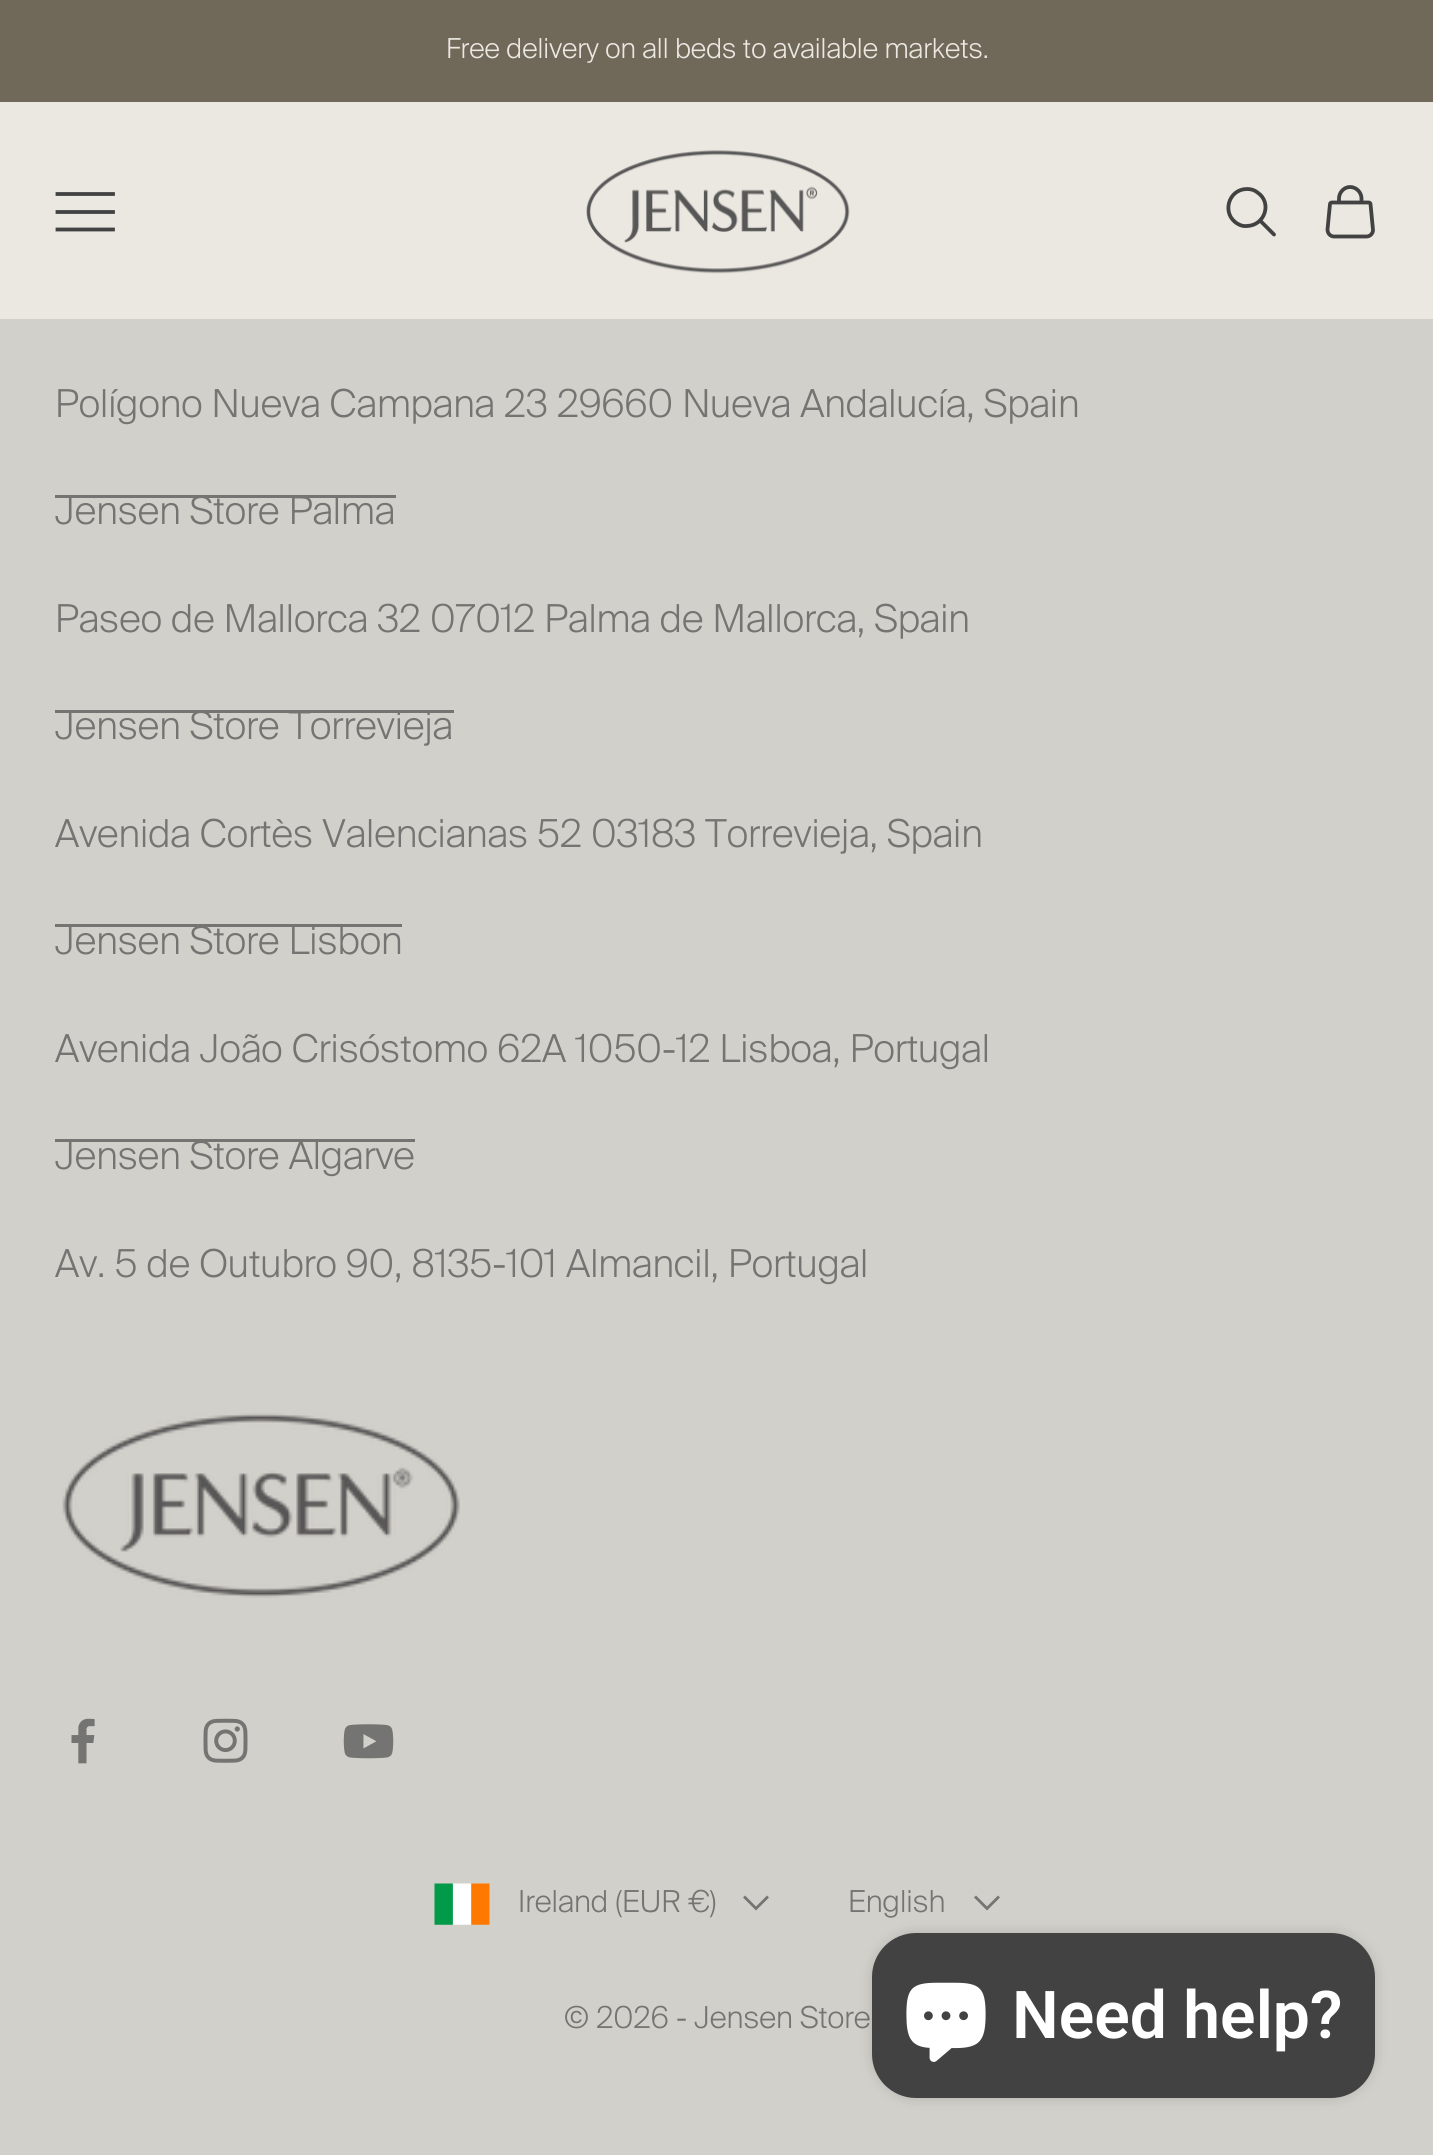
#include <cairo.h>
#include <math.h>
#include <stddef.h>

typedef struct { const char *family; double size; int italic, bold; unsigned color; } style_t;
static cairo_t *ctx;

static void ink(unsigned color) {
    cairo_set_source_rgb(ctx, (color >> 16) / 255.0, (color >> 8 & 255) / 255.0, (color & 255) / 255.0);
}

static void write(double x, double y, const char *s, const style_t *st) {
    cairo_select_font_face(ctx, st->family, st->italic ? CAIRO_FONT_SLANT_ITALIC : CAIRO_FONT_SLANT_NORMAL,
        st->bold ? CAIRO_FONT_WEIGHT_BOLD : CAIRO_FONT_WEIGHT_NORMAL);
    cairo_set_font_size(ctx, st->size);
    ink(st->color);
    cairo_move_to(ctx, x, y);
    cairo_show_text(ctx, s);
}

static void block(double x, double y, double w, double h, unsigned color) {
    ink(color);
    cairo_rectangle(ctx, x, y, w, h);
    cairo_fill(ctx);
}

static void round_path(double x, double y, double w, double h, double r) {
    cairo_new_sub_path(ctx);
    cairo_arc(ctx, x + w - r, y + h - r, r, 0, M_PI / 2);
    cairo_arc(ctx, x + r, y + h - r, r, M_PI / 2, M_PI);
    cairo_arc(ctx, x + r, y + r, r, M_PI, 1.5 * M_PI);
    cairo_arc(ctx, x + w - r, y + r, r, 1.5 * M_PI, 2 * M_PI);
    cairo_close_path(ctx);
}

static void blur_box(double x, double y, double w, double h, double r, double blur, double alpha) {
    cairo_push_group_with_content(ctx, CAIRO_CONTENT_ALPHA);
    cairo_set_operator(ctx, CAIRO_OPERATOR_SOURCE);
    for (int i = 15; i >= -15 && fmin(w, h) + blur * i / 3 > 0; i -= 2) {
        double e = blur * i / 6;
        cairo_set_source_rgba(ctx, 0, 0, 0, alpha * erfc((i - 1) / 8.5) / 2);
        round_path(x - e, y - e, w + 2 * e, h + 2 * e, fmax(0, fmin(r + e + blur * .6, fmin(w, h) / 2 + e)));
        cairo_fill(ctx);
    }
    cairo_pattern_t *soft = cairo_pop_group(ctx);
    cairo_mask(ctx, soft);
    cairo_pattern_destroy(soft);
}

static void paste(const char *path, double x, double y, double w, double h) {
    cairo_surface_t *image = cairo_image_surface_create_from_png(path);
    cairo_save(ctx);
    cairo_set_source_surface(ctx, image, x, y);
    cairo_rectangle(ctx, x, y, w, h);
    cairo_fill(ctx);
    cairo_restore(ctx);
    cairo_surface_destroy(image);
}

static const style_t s1 = {"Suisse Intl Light", 27.5, 0, 0, 0xebe7e1};
static const style_t s2 = {"Suisse Intl Light", 38.5, 0, 0, 0x747472};
static const style_t s3 = {"Suisse Intl Light", 30.25, 0, 0, 0x747472};
static const style_t s4 = {"Roboto SemiBold", 66, 0, 0, 0xffffff};

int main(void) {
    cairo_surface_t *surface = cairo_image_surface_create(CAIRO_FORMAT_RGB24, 1433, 2155);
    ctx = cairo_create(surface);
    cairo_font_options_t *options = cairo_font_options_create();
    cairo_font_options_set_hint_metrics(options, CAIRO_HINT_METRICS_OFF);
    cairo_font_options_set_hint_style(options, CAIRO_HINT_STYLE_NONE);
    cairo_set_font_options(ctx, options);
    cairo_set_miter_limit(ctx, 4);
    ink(0xd2d0ca);
    cairo_paint(ctx);
    block(0, 0, 1433, 102, 0x70695a);
    write(446, 58, "Free delivery on all beds to available markets.", &s1);
    block(0, 102, 1433, 217, 0xebe7e1);
    cairo_new_path(ctx);
    cairo_move_to(ctx, 57.5, 229.5);
    cairo_line_to(ctx, 113, 229.5);
    cairo_move_to(ctx, 57.5, 212);
    cairo_line_to(ctx, 113, 212);
    cairo_move_to(ctx, 57.5, 194);
    cairo_line_to(ctx, 113, 194);
    ink(0x424242);
    cairo_set_line_width(ctx, 3.8);
    cairo_set_line_cap(ctx, CAIRO_LINE_CAP_SQUARE);
    cairo_stroke(ctx);
    paste("pic1.png", 586, 150, 264, 124);
    cairo_new_path(ctx);
    cairo_move_to(ctx, 1247, 189);
    cairo_curve_to(ctx, 1228, 189, 1221, 214.5, 1238, 224);
    cairo_curve_to(ctx, 1240.5, 225.5, 1244, 226.5, 1247, 226);
    cairo_curve_to(ctx, 1265, 225.5, 1272.5, 202.5, 1257.5, 192.5);
    cairo_curve_to(ctx, 1254.5, 190, 1251, 189, 1247, 189);
    cairo_close_path(ctx);
    cairo_set_line_cap(ctx, CAIRO_LINE_CAP_BUTT);
    cairo_stroke(ctx);
    cairo_new_path(ctx);
    cairo_move_to(ctx, 1261, 221.5);
    cairo_line_to(ctx, 1274, 234.5);
    cairo_set_line_cap(ctx, CAIRO_LINE_CAP_ROUND);
    cairo_stroke(ctx);
    cairo_new_path(ctx);
    cairo_move_to(ctx, 1332, 202.5);
    cairo_curve_to(ctx, 1331, 202.5, 1330, 203, 1330, 204);
    cairo_line_to(ctx, 1327.5, 229.5);
    cairo_curve_to(ctx, 1327.5, 233.5, 1330.5, 236.5, 1334, 236.5);
    cairo_line_to(ctx, 1366.5, 236.5);
    cairo_curve_to(ctx, 1370, 236.5, 1373, 233.5, 1373, 230);
    cairo_line_to(ctx, 1370.5, 204);
    cairo_curve_to(ctx, 1370.5, 203, 1369.5, 202.5, 1368.5, 202.5);
    cairo_close_path(ctx);
    cairo_move_to(ctx, 1339, 202.5);
    cairo_line_to(ctx, 1339, 198.5);
    cairo_curve_to(ctx, 1339, 192.5, 1344, 187, 1350, 187);
    cairo_curve_to(ctx, 1356.5, 187, 1361.5, 192.5, 1361.5, 198.5);
    cairo_line_to(ctx, 1361.5, 202.5);
    cairo_set_line_join(ctx, CAIRO_LINE_JOIN_ROUND);
    cairo_stroke(ctx);
    write(55, 417, "Polígono Nueva Campana 23 29660 Nueva Andalucía, Spain", &s2);
    block(55, 495, 341, 3, 0x747472);
    write(55, 524, "Jensen Store Palma", &s2);
    write(55, 632, "Paseo de Mallorca 32 07012 Palma de Mallorca, Spain", &s2);
    block(55, 710, 399, 3, 0x747472);
    write(55, 739, "Jensen Store Torrevieja", &s2);
    write(55, 847, "Avenida Cortès Valencianas 52 03183 Torrevieja, Spain", &s2);
    block(55, 924, 347, 3, 0x747472);
    write(55, 954, "Jensen Store Lisbon", &s2);
    write(55, 1062, "Avenida João Crisóstomo 62A 1050-12 Lisboa, Portugal", &s2);
    block(55, 1139, 360, 3, 0x747472);
    write(55, 1169, "Jensen Store Algarve", &s2);
    write(55, 1277, "Av. 5 de Outubro 90, 8135-101 Almancil, Portugal", &s2);
    paste("pic2.png", 62, 1413, 398, 185);
    paste("pic3.png", 71, 1718, 24, 46);
    paste("pic4.png", 203, 1718, 45, 45);
    paste("pic5.png", 343, 1724, 51, 35);
    paste("pic6.png", 434, 1883, 56, 42);
    write(518, 1912, "Ireland (EUR €)", &s3);
    cairo_new_path(ctx);
    cairo_move_to(ctx, 745, 1897.5);
    cairo_line_to(ctx, 756, 1908.5);
    cairo_line_to(ctx, 767, 1897.5);
    cairo_set_line_width(ctx, 2.8);
    cairo_set_line_cap(ctx, CAIRO_LINE_CAP_SQUARE);
    cairo_set_line_join(ctx, CAIRO_LINE_JOIN_MITER);
    cairo_stroke(ctx);
    write(848, 1912, "English", &s3);
    cairo_new_path(ctx);
    cairo_move_to(ctx, 976, 1897.5);
    cairo_line_to(ctx, 987, 1908.5);
    cairo_line_to(ctx, 998, 1897.5);
    cairo_stroke(ctx);
    write(564, 2028, "© 2026 - Jensen Store", &s3);
    ink(0x000000);
    blur_box(872, 1933, 503, 165, 44, 7, 0.15);
    ink(0x424242);
    round_path(872, 1933, 503, 165, 44);
    cairo_fill(ctx);
    paste("pic7.png", 906, 1982, 80, 80);
    write(1012, 2038, "Need help?", &s4);
    cairo_surface_write_to_png(surface, "screenshot.png");
    cairo_font_options_destroy(options);
    cairo_destroy(ctx);
    cairo_surface_destroy(surface);
    return 0;
}
